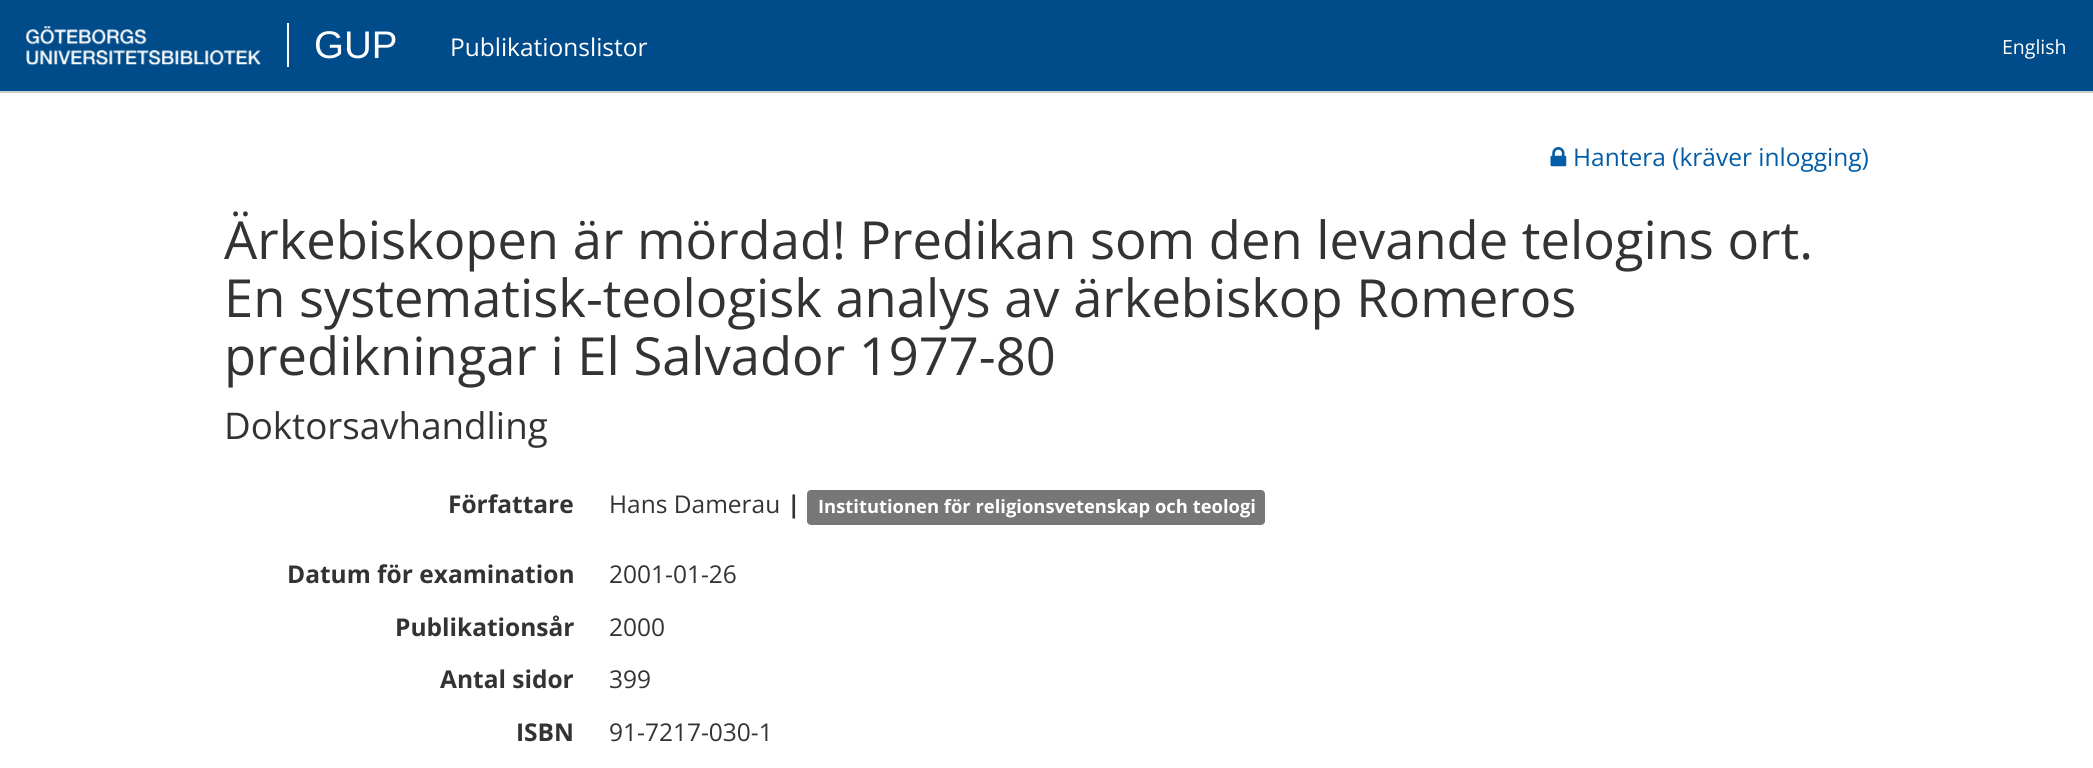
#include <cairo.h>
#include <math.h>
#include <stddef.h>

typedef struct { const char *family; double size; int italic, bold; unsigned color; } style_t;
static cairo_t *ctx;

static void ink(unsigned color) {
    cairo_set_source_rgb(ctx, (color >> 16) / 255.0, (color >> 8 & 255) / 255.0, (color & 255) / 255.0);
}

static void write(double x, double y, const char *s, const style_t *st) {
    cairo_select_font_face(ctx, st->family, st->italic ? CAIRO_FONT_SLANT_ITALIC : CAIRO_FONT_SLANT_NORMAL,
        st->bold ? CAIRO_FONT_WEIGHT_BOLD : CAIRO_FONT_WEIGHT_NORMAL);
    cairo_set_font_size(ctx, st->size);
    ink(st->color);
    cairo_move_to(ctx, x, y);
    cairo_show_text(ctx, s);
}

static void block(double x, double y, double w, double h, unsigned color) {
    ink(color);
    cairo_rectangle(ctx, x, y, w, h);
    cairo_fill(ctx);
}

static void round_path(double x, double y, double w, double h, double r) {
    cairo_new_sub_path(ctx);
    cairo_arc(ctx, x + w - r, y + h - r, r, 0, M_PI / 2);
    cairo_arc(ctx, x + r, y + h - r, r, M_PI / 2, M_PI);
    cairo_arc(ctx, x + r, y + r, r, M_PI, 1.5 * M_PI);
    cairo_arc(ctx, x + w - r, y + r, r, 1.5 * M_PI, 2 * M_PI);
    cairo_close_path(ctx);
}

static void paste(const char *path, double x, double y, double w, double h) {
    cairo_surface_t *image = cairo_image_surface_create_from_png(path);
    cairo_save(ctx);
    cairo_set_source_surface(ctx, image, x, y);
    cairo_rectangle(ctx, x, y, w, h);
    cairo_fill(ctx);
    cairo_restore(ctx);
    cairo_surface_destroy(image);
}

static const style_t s1 = {"Liberation Sans", 38.5, 0, 0, 0xffffff};
static const style_t s2 = {"Open Sans", 24.5, 0, 0, 0xffffff};
static const style_t s3 = {"Open Sans", 19.5, 0, 0, 0xffffff};
static const style_t s4 = {"Open Sans", 24.5, 0, 0, 0x025da6};
static const style_t s5 = {"Open Sans", 52.5, 0, 0, 0x333333};
static const style_t s6 = {"Open Sans", 36.75, 0, 0, 0x333333};
static const style_t s7 = {"Open Sans", 24.5, 0, 1, 0x333333};
static const style_t s8 = {"Open Sans", 24.5, 0, 0, 0x333333};
static const style_t s9 = {"Open Sans", 18.4, 0, 1, 0xffffff};

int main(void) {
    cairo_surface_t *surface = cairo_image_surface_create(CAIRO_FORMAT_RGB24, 2093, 768);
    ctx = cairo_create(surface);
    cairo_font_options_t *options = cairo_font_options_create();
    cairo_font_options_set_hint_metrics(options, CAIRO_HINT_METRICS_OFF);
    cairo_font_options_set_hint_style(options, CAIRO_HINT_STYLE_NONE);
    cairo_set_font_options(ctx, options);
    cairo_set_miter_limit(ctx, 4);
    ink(0xffffff);
    cairo_paint(ctx);
    block(0, 0, 2093, 91, 0x004b89);
    block(0, 91, 2093, 2, 0xcccccc);
    paste("pic1.png", 26, 26, 235, 40);
    block(287, 23, 2, 44, 0xffffff);
    write(314, 58, "GUP", &s1);
    write(450, 56, "Publikationslistor", &s2);
    write(2002, 54, "English", &s3);
    paste("pic2.png", 1550, 147, 17, 20);
    write(1573, 166, "Hantera (kräver inlogging)", &s4);
    write(224, 259, "Ärkebiskopen är mördad! Predikan som den levande telogins ort.", &s5);
    write(224, 317, "En systematisk-teologisk analys av ärkebiskop Romeros", &s5);
    write(224, 375, "predikningar i El Salvador 1977-80", &s5);
    write(224, 439, "Doktorsavhandling", &s6);
    write(448, 513, "Författare", &s7);
    write(609, 513, "Hans Damerau", &s8);
    write(787, 513, "|", &s7);
    ink(0x777777);
    round_path(807, 490, 458, 35, 4);
    cairo_fill(ctx);
    write(818, 513, "Institutionen för religionsvetenskap och teologi", &s9);
    write(287, 583, "Datum för examination", &s7);
    write(609, 583, "2001-01-26", &s8);
    write(395, 636, "Publikationsår", &s7);
    write(609, 636, "2000", &s8);
    write(440, 688, "Antal sidor", &s7);
    write(609, 688, "399", &s8);
    write(516, 741, "ISBN", &s7);
    write(609, 741, "91-7217-030-1", &s8);
    cairo_surface_write_to_png(surface, "screenshot.png");
    cairo_font_options_destroy(options);
    cairo_destroy(ctx);
    cairo_surface_destroy(surface);
    return 0;
}
